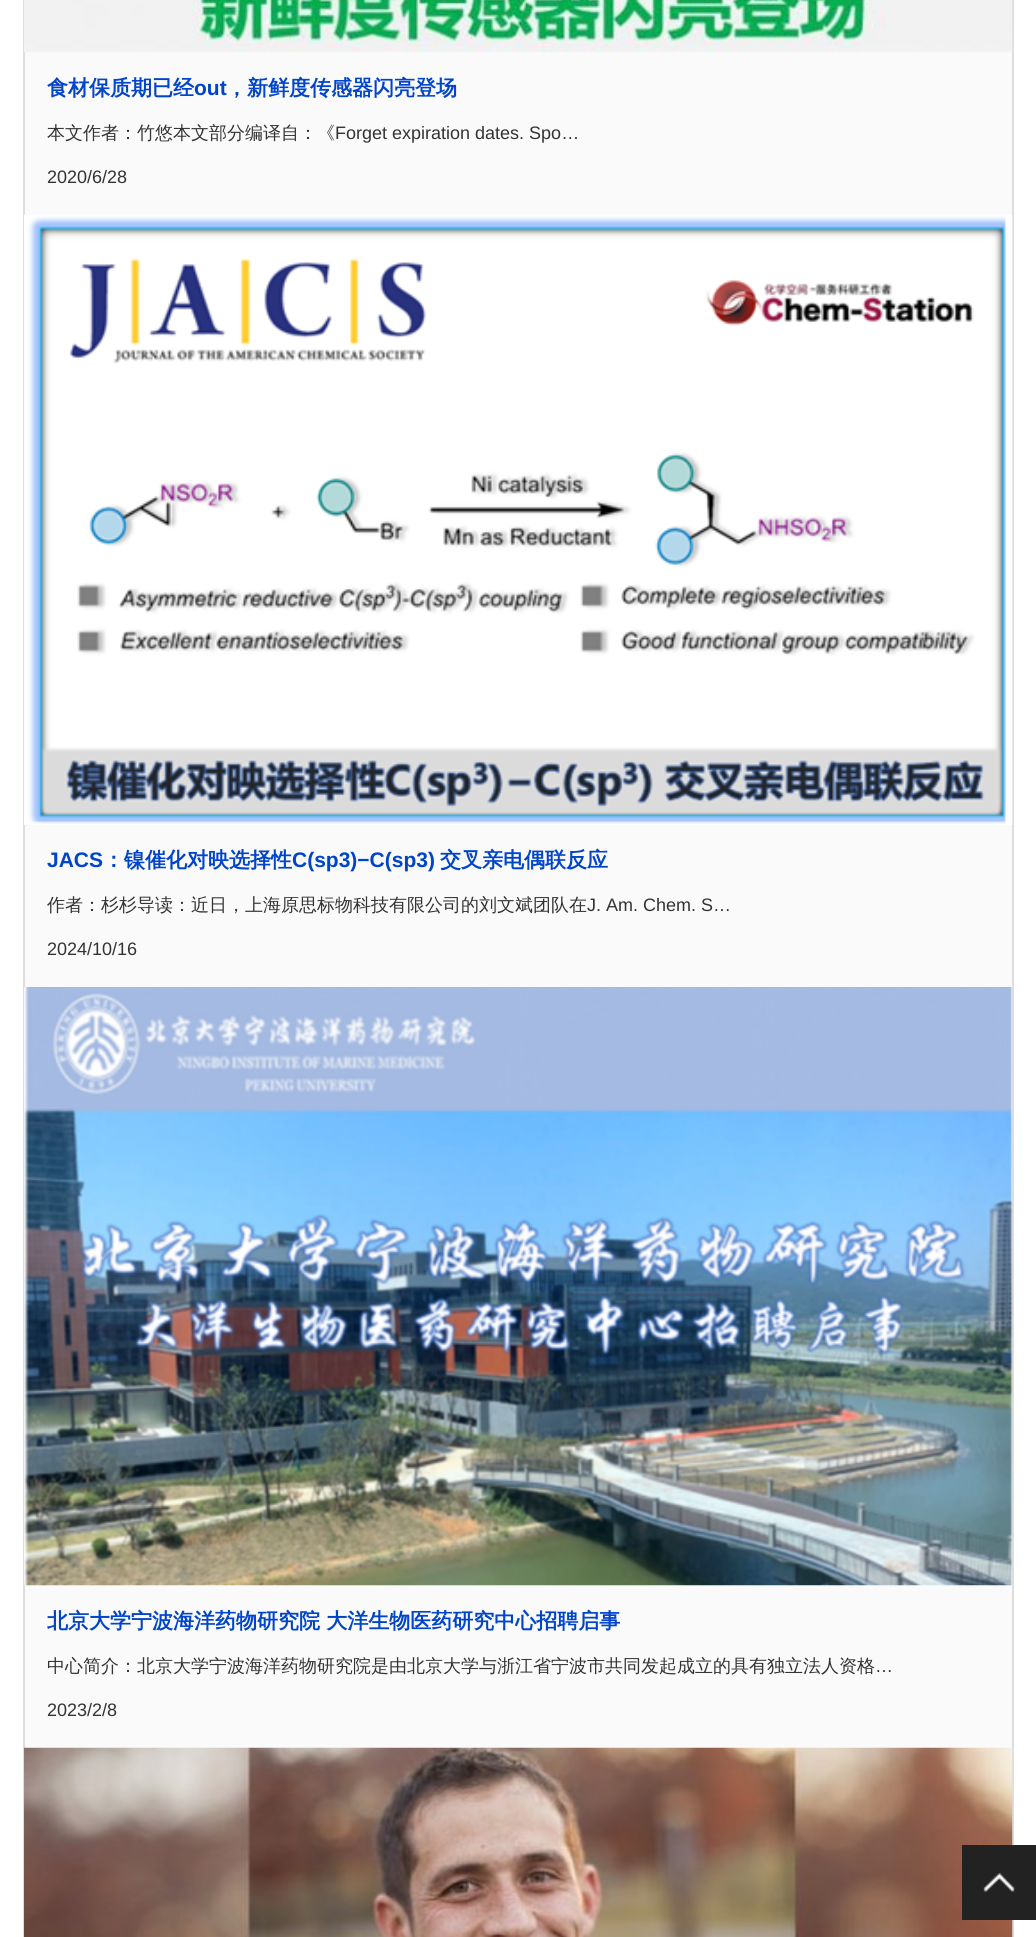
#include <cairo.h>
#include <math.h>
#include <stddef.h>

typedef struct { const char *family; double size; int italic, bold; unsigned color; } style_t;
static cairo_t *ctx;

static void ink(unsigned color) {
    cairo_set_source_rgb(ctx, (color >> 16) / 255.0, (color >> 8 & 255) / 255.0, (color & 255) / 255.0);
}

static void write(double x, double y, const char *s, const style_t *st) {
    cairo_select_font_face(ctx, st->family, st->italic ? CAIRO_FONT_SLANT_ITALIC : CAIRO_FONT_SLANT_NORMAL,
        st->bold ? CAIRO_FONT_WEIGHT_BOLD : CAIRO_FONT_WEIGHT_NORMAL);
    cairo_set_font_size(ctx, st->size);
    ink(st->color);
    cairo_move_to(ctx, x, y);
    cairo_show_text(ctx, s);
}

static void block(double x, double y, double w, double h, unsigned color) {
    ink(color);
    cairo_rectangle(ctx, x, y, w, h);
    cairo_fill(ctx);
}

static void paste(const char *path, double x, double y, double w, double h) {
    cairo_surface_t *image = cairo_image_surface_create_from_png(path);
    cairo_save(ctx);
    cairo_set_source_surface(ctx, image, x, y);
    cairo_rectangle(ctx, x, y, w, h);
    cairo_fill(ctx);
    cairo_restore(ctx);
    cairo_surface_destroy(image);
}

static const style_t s1 = {"WenQuanYi Zen Hei", 21, 0, 1, 0x0044cc};
static const style_t s2 = {"Liberation Sans", 21, 0, 1, 0x0044cc};
static const style_t s3 = {"WenQuanYi Zen Hei Medium", 18, 0, 0, 0x333333};
static const style_t s4 = {"Liberation Sans", 18, 0, 0, 0x333333};

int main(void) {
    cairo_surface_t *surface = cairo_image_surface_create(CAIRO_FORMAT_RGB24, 1036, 1937);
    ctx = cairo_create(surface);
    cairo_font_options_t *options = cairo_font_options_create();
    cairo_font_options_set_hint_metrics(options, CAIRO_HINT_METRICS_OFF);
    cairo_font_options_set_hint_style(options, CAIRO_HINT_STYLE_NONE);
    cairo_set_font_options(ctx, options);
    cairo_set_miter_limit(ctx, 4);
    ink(0xffffff);
    cairo_paint(ctx);
    block(25, 52, 987, 1696, 0xfafafa);
    cairo_rectangle(ctx, 24, -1, 989, 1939);
    ink(0xdddddd);
    cairo_stroke(ctx);
    paste("pic1.png", 24, 0, 989, 53);
    write(47, 95, "食材保质期已经", &s1);
    write(194, 95, "out", &s2);
    write(226, 95, "，新鲜度传感器闪亮登场", &s1);
    write(47, 139, "本文作者：竹悠本文部分编译自：《", &s3);
    write(335, 139, "Forget expiration dates. Spo…", &s4);
    write(47, 183, "2020/6/28", &s4);
    paste("pic2.png", 24, 214, 989, 611);
    write(47, 867, "JACS", &s2);
    write(103, 867, "：镍催化对映选择性", &s1);
    write(292, 867, "C(sp3)−C(sp3)", &s2);
    write(440, 867, "交叉亲电偶联反应", &s1);
    write(47, 911, "作者：杉杉导读：近日，上海原思标物科技有限公司的刘文斌团队在", &s3);
    write(587, 911, "J. Am. Chem. S…", &s4);
    write(47, 955, "2024/10/16", &s4);
    paste("pic3.png", 24, 987, 989, 599);
    write(47, 1628, "北京大学宁波海洋药物研究院 大洋生物医药研究中心招聘启事", &s1);
    write(47, 1672, "中心简介：北京大学宁波海洋药物研究院是由北京大学与浙江省宁波市共同发起成立的具有独立法人资格", &s3);
    write(875, 1672, "…", &s4);
    write(47, 1716, "2023/2/8", &s4);
    paste("pic4.png", 24, 1747, 989, 190);
    block(962, 1845, 74, 75, 0x222222);
    paste("pic5.png", 983, 1873, 32, 19);
    cairo_surface_write_to_png(surface, "screenshot.png");
    cairo_font_options_destroy(options);
    cairo_destroy(ctx);
    cairo_surface_destroy(surface);
    return 0;
}
